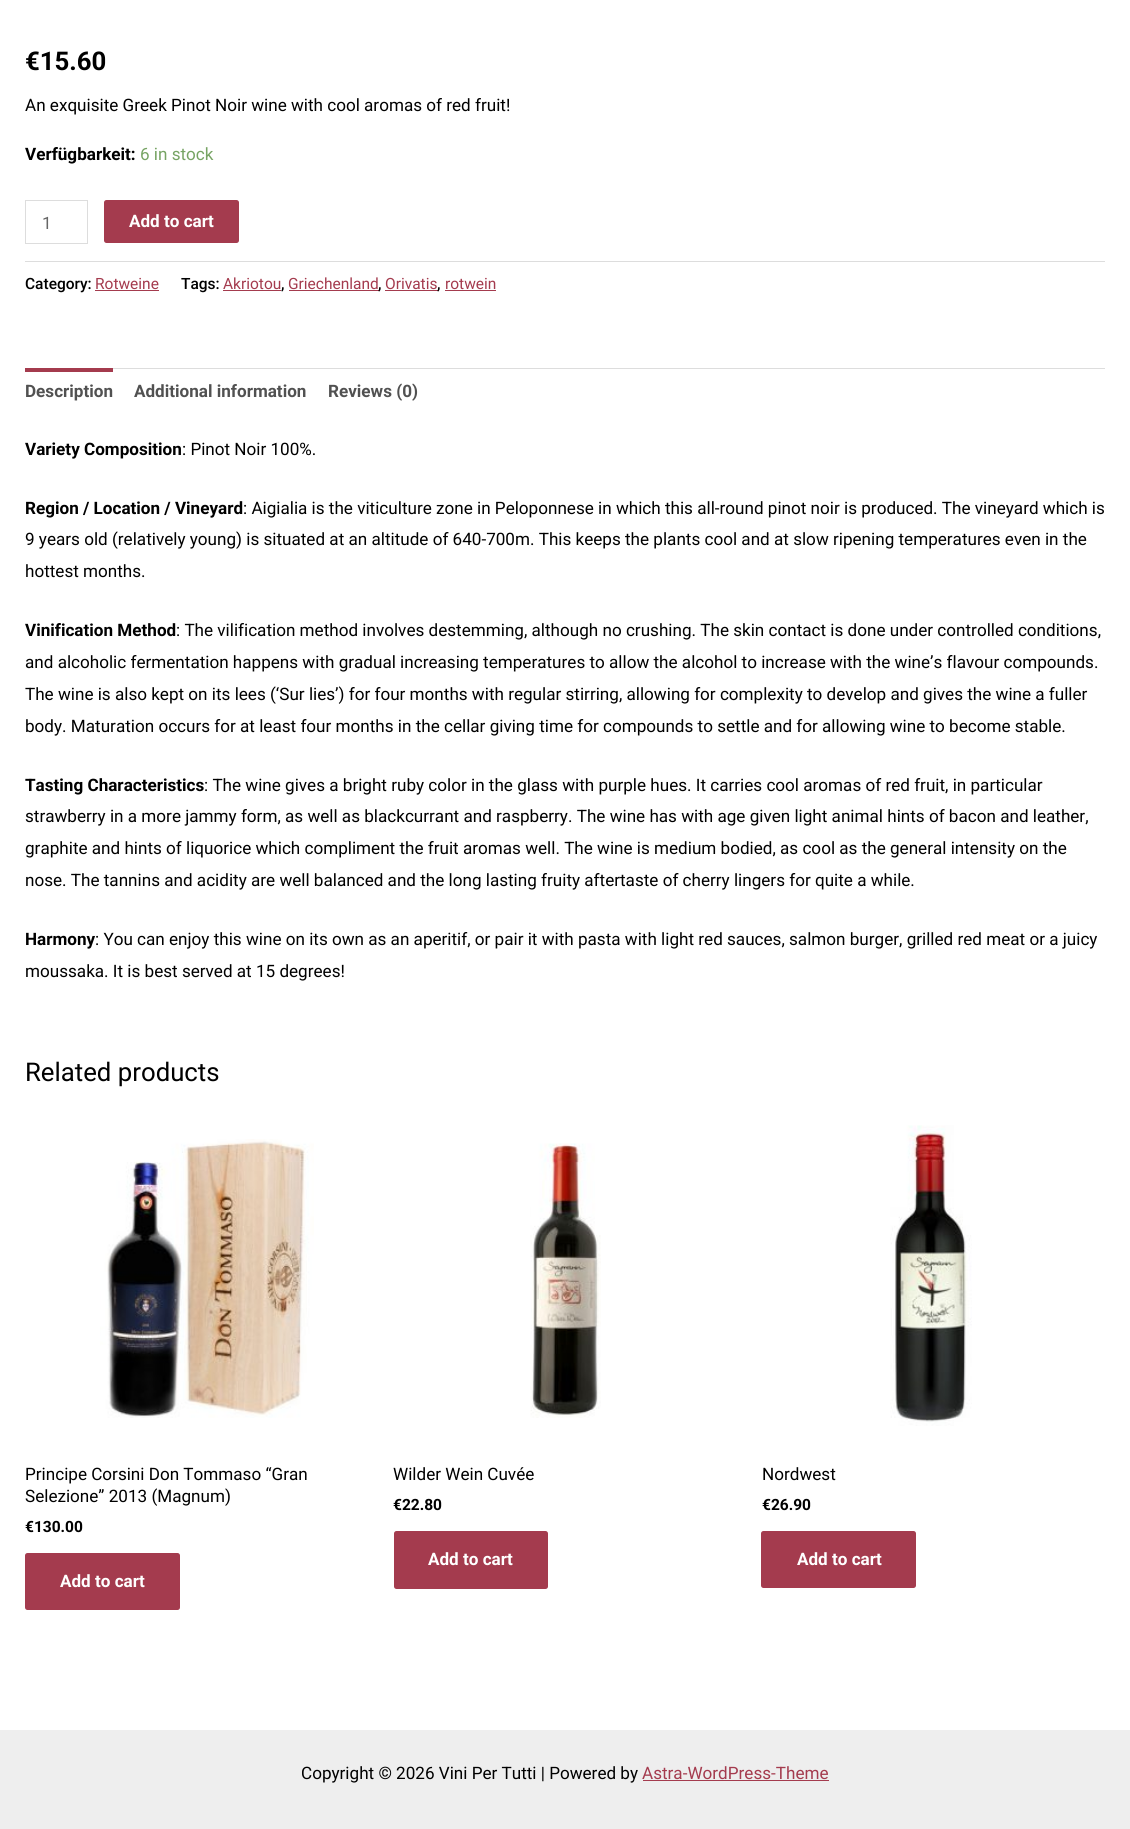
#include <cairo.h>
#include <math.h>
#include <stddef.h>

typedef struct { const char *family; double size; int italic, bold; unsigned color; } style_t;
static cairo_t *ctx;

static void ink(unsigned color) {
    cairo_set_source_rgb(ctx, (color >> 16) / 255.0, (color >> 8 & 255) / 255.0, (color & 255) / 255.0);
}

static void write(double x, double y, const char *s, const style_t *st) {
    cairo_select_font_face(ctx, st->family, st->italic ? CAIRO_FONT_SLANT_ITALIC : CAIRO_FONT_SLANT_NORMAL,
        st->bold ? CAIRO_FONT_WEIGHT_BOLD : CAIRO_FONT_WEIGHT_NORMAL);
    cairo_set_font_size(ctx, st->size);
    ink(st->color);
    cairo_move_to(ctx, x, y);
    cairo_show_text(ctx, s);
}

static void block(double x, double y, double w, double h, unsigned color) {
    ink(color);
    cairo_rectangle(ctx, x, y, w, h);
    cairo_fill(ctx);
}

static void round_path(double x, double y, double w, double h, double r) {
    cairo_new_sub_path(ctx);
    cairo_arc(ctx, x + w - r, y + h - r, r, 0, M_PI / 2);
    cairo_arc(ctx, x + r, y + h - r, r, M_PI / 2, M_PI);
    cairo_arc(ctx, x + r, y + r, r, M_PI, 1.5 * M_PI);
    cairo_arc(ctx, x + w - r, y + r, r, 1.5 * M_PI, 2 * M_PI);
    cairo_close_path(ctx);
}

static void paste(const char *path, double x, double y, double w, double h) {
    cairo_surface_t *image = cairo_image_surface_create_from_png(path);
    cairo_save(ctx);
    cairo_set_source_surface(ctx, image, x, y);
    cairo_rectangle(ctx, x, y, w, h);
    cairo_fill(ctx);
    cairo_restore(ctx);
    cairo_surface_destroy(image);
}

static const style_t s1 = {"Roboto", 25.75, 0, 1, 0x000000};
static const style_t s2 = {"Roboto", 17.1, 0, 0, 0x000000};
static const style_t s3 = {"Roboto", 17.1, 0, 1, 0x000000};
static const style_t s4 = {"Roboto", 17.1, 0, 0, 0x77a464};
static const style_t s5 = {"Roboto", 17.1, 0, 0, 0x666666};
static const style_t s6 = {"Roboto", 17.1, 0, 1, 0xffffff};
static const style_t s7 = {"Roboto Medium", 15.5, 0, 0, 0x000000};
static const style_t s8 = {"Roboto", 15.5, 0, 0, 0xa43b4e};
static const style_t s9 = {"Roboto", 17.1, 0, 1, 0x515151};
static const style_t s10 = {"Roboto", 25.75, 0, 0, 0x000000};
static const style_t s11 = {"Roboto", 15.5, 0, 1, 0x000000};
static const style_t s12 = {"Roboto", 17.1, 0, 0, 0xa43b4e};

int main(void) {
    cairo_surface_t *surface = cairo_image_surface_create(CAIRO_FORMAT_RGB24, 1130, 1829);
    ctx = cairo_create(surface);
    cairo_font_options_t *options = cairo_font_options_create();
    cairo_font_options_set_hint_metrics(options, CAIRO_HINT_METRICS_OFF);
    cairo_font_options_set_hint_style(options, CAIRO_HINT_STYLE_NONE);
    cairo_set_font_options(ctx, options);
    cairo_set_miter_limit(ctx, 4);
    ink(0xffffff);
    cairo_paint(ctx);
    write(25, 70, "€15.60", &s1);
    write(25, 111, "An exquisite Greek Pinot Noir wine with cool aromas of red fruit!", &s2);
    write(25, 160, "Verfügbarkeit:", &s3);
    write(140, 160, "6 in stock", &s4);
    cairo_rectangle(ctx, 25.5, 200.5, 62, 43);
    ink(0xdddddd);
    cairo_set_line_width(ctx, 1);
    cairo_stroke(ctx);
    write(42, 229, "1", &s5);
    ink(0xa43b4e);
    round_path(104, 200, 135, 43, 2.5);
    cairo_fill(ctx);
    write(129, 227, "Add to cart", &s6);
    block(25, 261, 1080, 1, 0xdddddd);
    write(25, 289, "Category:", &s7);
    write(95, 289, "Rotweine", &s8);
    block(95, 290, 64, 1, 0xa43b4e);
    write(181, 289, "Tags:", &s7);
    write(223, 289, "Akriotou", &s8);
    block(223, 290, 58, 1, 0xa43b4e);
    write(281, 289, ",", &s7);
    write(288, 289, "Griechenland", &s8);
    block(289, 290, 90, 1, 0xa43b4e);
    write(378, 289, ",", &s7);
    write(385, 289, "Orivatis", &s8);
    block(385, 290, 53, 1, 0xa43b4e);
    write(437, 289, ",", &s7);
    write(445, 289, "rotwein", &s8);
    block(445, 290, 51, 1, 0xa43b4e);
    block(113, 368, 992, 1, 0xdddddd);
    block(25, 368, 88, 4, 0xa43b4e);
    write(25, 397, "Description", &s9);
    write(134, 397, "Additional information", &s9);
    write(328, 397, "Reviews (0)", &s9);
    write(25, 455, "Variety Composition", &s3);
    write(182, 455, ": Pinot Noir 100%.", &s2);
    write(25, 514, "Region / Location / Vineyard", &s3);
    write(243, 514, ": Aigialia is the viticulture zone in Peloponnese in which this all-round pinot noir is produced. The vineyard which is", &s2);
    write(25, 545, "9 years old (relatively young) is situated at an altitude of 640-700m. This keeps the plants cool and at slow ripening temperatures even in the", &s2);
    write(25, 577, "hottest months.", &s2);
    write(25, 636, "Vinification Method", &s3);
    write(176, 636, ": The vilification method involves destemming, although no crushing. The skin contact is done under controlled conditions,", &s2);
    write(25, 668, "and alcoholic fermentation happens with gradual increasing temperatures to allow the alcohol to increase with the wine’s flavour compounds.", &s2);
    write(25, 700, "The wine is also kept on its lees (‘Sur lies’) for four months with regular stirring, allowing for complexity to develop and gives the wine a fuller", &s2);
    write(25, 732, "body. Maturation occurs for at least four months in the cellar giving time for compounds to settle and for allowing wine to become stable.", &s2);
    write(25, 791, "Tasting Characteristics", &s3);
    write(204, 791, ": The wine gives a bright ruby color in the glass with purple hues. It carries cool aromas of red fruit, in particular", &s2);
    write(25, 822, "strawberry in a more jammy form, as well as blackcurrant and raspberry. The wine has with age given light animal hints of bacon and leather,", &s2);
    write(25, 854, "graphite and hints of liquorice which compliment the fruit aromas well. The wine is medium bodied, as cool as the general intensity on the", &s2);
    write(25, 886, "nose. The tannins and acidity are well balanced and the long lasting fruity aftertaste of cherry lingers for quite a while.", &s2);
    write(25, 945, "Harmony", &s3);
    write(95, 945, ": You can enjoy this wine on its own as an aperitif, or pair it with pasta with light red sauces, salmon burger, grilled red meat or a juicy", &s2);
    write(25, 977, "moussaka. It is best served at 15 degrees!", &s2);
    write(25, 1081, "Related products", &s10);
    paste("pic1.png", 100, 1139, 214, 279);
    write(25, 1480, "Principe Corsini Don Tommaso “Gran", &s2);
    write(25, 1502, "Selezione” 2013 (Magnum)", &s2);
    write(25, 1532, "€130.00", &s11);
    ink(0xa43b4e);
    round_path(25, 1553, 155, 57, 2.5);
    cairo_fill(ctx);
    write(60, 1587, "Add to cart", &s6);
    paste("pic2.png", 530, 1143, 71, 275);
    write(393, 1480, "Wilder Wein Cuvée", &s2);
    write(393, 1510, "€22.80", &s11);
    ink(0xa43b4e);
    round_path(394, 1531, 154, 58, 2.5);
    cairo_fill(ctx);
    write(428, 1565, "Add to cart", &s6);
    paste("pic3.png", 890, 1125, 82, 301);
    write(762, 1480, "Nordwest", &s2);
    write(762, 1510, "€26.90", &s11);
    ink(0xa43b4e);
    round_path(761, 1531, 155, 57, 2.5);
    cairo_fill(ctx);
    write(797, 1565, "Add to cart", &s6);
    block(0, 1730, 1130, 99, 0xeeeeee);
    write(301, 1779, "Copyright © 2026 Vini Per Tutti | Powered by", &s2);
    write(642, 1779, "Astra-WordPress-Theme", &s12);
    block(643, 1780, 186, 1, 0xa43b4e);
    cairo_surface_write_to_png(surface, "screenshot.png");
    cairo_font_options_destroy(options);
    cairo_destroy(ctx);
    cairo_surface_destroy(surface);
    return 0;
}
